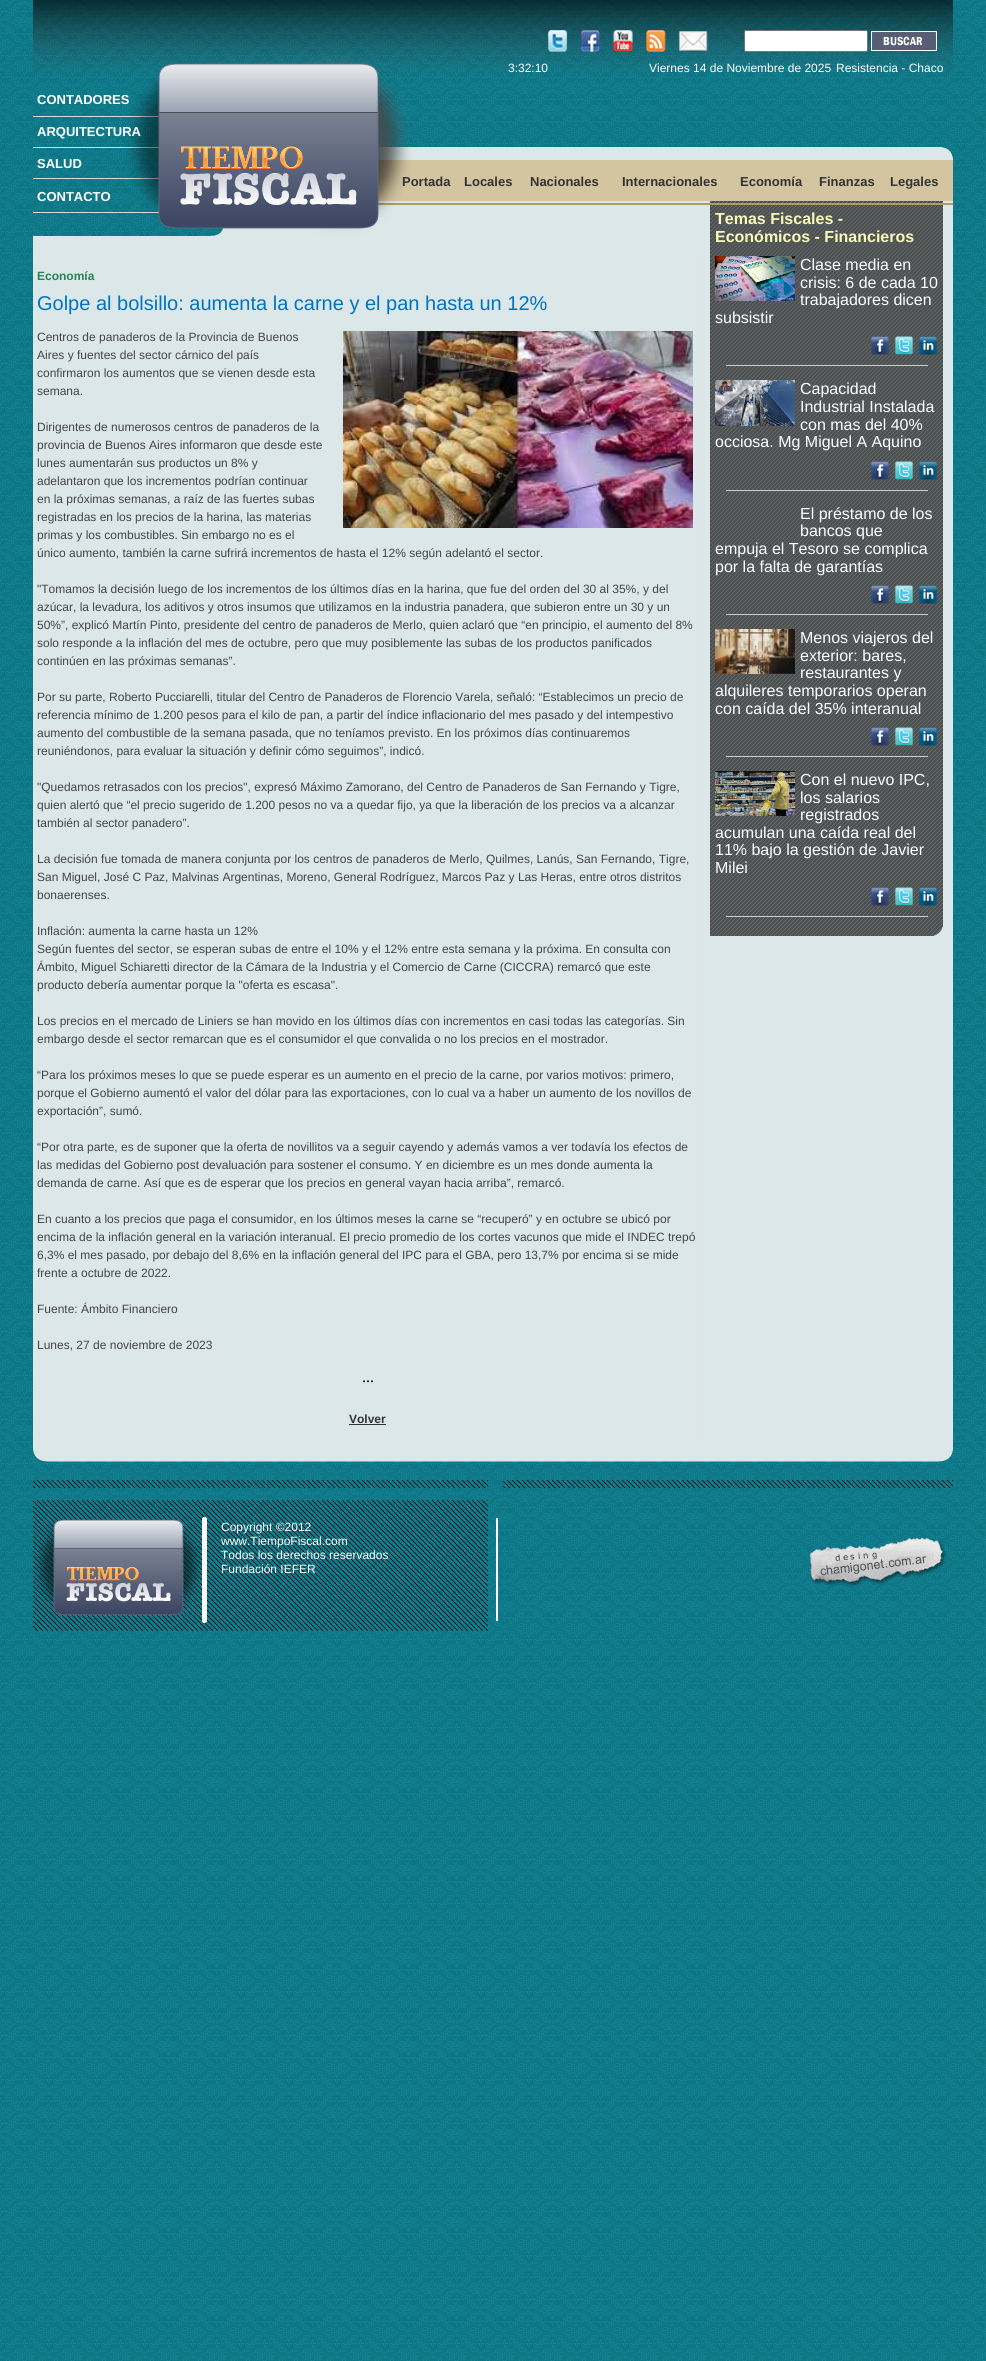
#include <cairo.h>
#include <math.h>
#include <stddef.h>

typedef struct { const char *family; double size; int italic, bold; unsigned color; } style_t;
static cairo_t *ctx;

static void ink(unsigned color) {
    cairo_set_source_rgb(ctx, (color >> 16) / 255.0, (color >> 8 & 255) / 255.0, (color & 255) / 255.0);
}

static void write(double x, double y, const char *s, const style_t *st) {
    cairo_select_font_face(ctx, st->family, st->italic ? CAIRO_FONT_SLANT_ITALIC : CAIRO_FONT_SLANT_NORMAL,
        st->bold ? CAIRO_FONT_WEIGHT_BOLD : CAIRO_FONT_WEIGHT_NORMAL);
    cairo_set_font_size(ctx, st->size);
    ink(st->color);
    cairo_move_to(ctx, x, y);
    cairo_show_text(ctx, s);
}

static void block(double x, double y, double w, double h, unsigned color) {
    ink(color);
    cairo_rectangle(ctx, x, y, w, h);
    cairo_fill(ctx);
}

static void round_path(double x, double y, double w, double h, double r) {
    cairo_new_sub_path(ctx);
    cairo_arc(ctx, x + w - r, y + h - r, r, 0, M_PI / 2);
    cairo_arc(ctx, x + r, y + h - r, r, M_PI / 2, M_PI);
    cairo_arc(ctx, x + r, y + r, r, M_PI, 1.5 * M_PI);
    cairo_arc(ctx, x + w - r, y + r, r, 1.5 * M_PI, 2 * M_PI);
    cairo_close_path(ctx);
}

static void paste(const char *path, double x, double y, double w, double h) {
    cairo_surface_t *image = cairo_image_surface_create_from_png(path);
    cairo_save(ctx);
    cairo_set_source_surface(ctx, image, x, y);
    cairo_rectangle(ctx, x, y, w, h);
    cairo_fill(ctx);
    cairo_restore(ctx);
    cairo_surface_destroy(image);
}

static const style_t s1 = {"Liberation Sans", 13, 0, 1, 0xffffff};
static const style_t s2 = {"Liberation Sans", 12, 0, 0, 0xffffff};
static const style_t s3 = {"Liberation Sans", 13, 0, 1, 0x333333};
static const style_t s4 = {"Liberation Sans", 12, 0, 1, 0x238754};
static const style_t s5 = {"Liberation Sans", 20, 0, 0, 0x0074c1};
static const style_t s6 = {"Liberation Sans", 12, 0, 0, 0x444444};
static const style_t s7 = {"Liberation Serif", 16, 0, 0, 0x000000};
static const style_t s8 = {"Liberation Sans", 12, 0, 1, 0x333333};
static const style_t s9 = {"Liberation Sans", 16, 0, 1, 0xf9f9b9};
static const style_t s10 = {"Liberation Sans", 16, 0, 0, 0xffffff};

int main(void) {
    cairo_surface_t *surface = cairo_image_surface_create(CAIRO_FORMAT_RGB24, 986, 2361);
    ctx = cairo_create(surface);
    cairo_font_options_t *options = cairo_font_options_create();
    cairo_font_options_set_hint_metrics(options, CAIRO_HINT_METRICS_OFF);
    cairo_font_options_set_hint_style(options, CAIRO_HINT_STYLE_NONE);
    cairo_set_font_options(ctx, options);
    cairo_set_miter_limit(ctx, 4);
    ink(0xffffff);
    cairo_paint(ctx);
    paste("pic1.png", 0, 0, 986, 2361);
    paste("pic2.png", 33, 0, 920, 205);
    write(37, 104, "CONTADORES", &s1);
    write(37, 136, "ARQUITECTURA", &s1);
    write(37, 168, "SALUD", &s1);
    write(37, 201, "CONTACTO", &s1);
    paste("pic3.png", 180, 146, 177, 59);
    paste("pic4.png", 548, 30, 160, 22);
    round_path(744.5, 30.5, 123, 21, 1.5);
    cairo_fill_preserve(ctx);
    ink(0x767676);
    cairo_set_line_width(ctx, 1);
    cairo_stroke(ctx);
    paste("pic5.png", 871, 31, 66, 20);
    write(508, 72, "3:32:10", &s2);
    write(649, 72, "Viernes 14 de Noviembre de 2025", &s2);
    write(836, 72, "Resistencia - Chaco", &s2);
    write(402, 186, "Portada", &s3);
    write(464, 186, "Locales", &s3);
    write(530, 186, "Nacionales", &s3);
    write(622, 186, "Internacionales", &s3);
    write(740, 186, "Economía", &s3);
    write(819, 186, "Finanzas", &s3);
    write(890, 186, "Legales", &s3);
    block(33, 238, 677, 1206, 0xdbe7e8);
    block(702, 256, 1, 1188, 0xe2e2e2);
    write(37, 280, "Economía", &s4);
    write(37, 310, "Golpe al bolsillo: aumenta la carne y el pan hasta un 12%", &s5);
    write(37, 341, "Centros de panaderos de la Provincia de Buenos", &s6);
    write(37, 359, "Aires y fuentes del sector cárnico del país", &s6);
    write(37, 377, "confirmaron los aumentos que se vienen desde esta", &s6);
    write(37, 395, "semana.", &s6);
    paste("pic6.png", 343, 331, 350, 197);
    write(37, 431, "Dirigentes de numerosos centros de panaderos de la", &s6);
    write(37, 449, "provincia de Buenos Aires informaron que desde este", &s6);
    write(37, 467, "lunes aumentarán sus productos un 8% y", &s6);
    write(37, 485, "adelantaron que los incrementos podrían continuar", &s6);
    write(37, 503, "en la próximas semanas, a raíz de las fuertes subas", &s6);
    write(37, 521, "registradas en los precios de la harina, las materias", &s6);
    write(37, 539, "primas y los combustibles. Sin embargo no es el", &s6);
    write(37, 557, "único aumento, también la carne sufrirá incrementos de hasta el 12% según adelantó el sector.", &s6);
    write(37, 593, "\"Tomamos la decisión luego de los incrementos de los últimos días en la harina, que fue del orden del 30 al 35%, y del", &s6);
    write(37, 611, "azúcar, la levadura, los aditivos y otros insumos que utilizamos en la industria panadera, que subieron entre un 30 y un", &s6);
    write(37, 629, "50%”, explicó Martín Pinto, presidente del centro de panaderos de Merlo, quien aclaró que “en principio, el aumento del 8%", &s6);
    write(37, 647, "solo responde a la inflación del mes de octubre, pero que muy posiblemente las subas de los productos panificados", &s6);
    write(37, 665, "continúen en las próximas semanas”.", &s6);
    write(37, 701, "Por su parte, Roberto Pucciarelli, titular del Centro de Panaderos de Florencio Varela, señaló: “Establecimos un precio de", &s6);
    write(37, 719, "referencia mínimo de 1.200 pesos para el kilo de pan, a partir del índice inflacionario del mes pasado y del intempestivo", &s6);
    write(37, 737, "aumento del combustible de la semana pasada, que no teníamos previsto. En los próximos días continuaremos", &s6);
    write(37, 755, "reuniéndonos, para evaluar la situación y definir cómo seguimos”, indicó.", &s6);
    write(37, 791, "\"Quedamos retrasados con los precios\", expresó Máximo Zamorano, del Centro de Panaderos de San Fernando y Tigre,", &s6);
    write(37, 809, "quien alertó que “el precio sugerido de 1.200 pesos no va a quedar fijo, ya que la liberación de los precios va a alcanzar", &s6);
    write(37, 827, "también al sector panadero”.", &s6);
    write(37, 863, "La decisión fue tomada de manera conjunta por los centros de panaderos de Merlo, Quilmes, Lanús, San Fernando, Tigre,", &s6);
    write(37, 881, "San Miguel, José C Paz, Malvinas Argentinas, Moreno, General Rodríguez, Marcos Paz y Las Heras, entre otros distritos", &s6);
    write(37, 899, "bonaerenses.", &s6);
    write(37, 935, "Inflación: aumenta la carne hasta un 12%", &s6);
    write(37, 953, "Según fuentes del sector, se esperan subas de entre el 10% y el 12% entre esta semana y la próxima. En consulta con", &s6);
    write(37, 971, "Ámbito, Miguel Schiaretti director de la Cámara de la Industria y el Comercio de Carne (CICCRA) remarcó que este", &s6);
    write(37, 989, "producto debería aumentar porque la \"oferta es escasa\".", &s6);
    write(37, 1025, "Los precios en el mercado de Liniers se han movido en los últimos días con incrementos en casi todas las categorías. Sin", &s6);
    write(37, 1043, "embargo desde el sector remarcan que es el consumidor el que convalida o no los precios en el mostrador.", &s6);
    write(37, 1079, "“Para los próximos meses lo que se puede esperar es un aumento en el precio de la carne, por varios motivos: primero,", &s6);
    write(37, 1097, "porque el Gobierno aumentó el valor del dólar para las exportaciones, con lo cual va a haber un aumento de los novillos de", &s6);
    write(37, 1115, "exportación”, sumó.", &s6);
    write(37, 1151, "“Por otra parte, es de suponer que la oferta de novillitos va a seguir cayendo y además vamos a ver todavía los efectos de", &s6);
    write(37, 1169, "las medidas del Gobierno post devaluación para sostener el consumo. Y en diciembre es un mes donde aumenta la", &s6);
    write(37, 1187, "demanda de carne. Así que es de esperar que los precios en general vayan hacia arriba”, remarcó.", &s6);
    write(37, 1223, "En cuanto a los precios que paga el consumidor, en los últimos meses la carne se “recuperó” y en octubre se ubicó por", &s6);
    write(37, 1241, "encima de la inflación general en la variación interanual. El precio promedio de los cortes vacunos que mide el INDEC trepó", &s6);
    write(37, 1259, "6,3% el mes pasado, por debajo del 8,6% en la inflación general del IPC para el GBA, pero 13,7% por encima si se mide", &s6);
    write(37, 1277, "frente a octubre de 2022.", &s6);
    write(37, 1313, "Fuente: Ámbito Financiero", &s6);
    write(37, 1349, "Lunes, 27 de noviembre de 2023", &s6);
    write(362, 1382, "...", &s7);
    write(349, 1423, "Volver", &s8);
    block(349, 1424, 37, 1, 0x333333);
    paste("pic7.png", 33, 205, 677, 33);
    block(710, 205, 243, 1239, 0xdce7e9);
    paste("pic8.png", 710, 205, 233, 731);
    write(715, 224, "Temas Fiscales -", &s9);
    write(715, 242, "Económicos - Financieros", &s9);
    paste("pic9.png", 715, 256, 80, 45);
    write(800, 270, "Clase media en", &s10);
    write(800, 288, "crisis: 6 de cada 10", &s10);
    write(800, 305, "trabajadores dicen", &s10);
    write(715, 323, "subsistir", &s10);
    paste("pic10.png", 871, 336, 18, 19);
    paste("pic11.png", 894, 336, 20, 19);
    paste("pic12.png", 918, 336, 20, 19);
    block(726, 365, 202, 1, 0xcccccc);
    paste("pic13.png", 715, 380, 80, 46);
    write(800, 394, "Capacidad", &s10);
    write(800, 412, "Industrial Instalada", &s10);
    write(800, 430, "con mas del 40%", &s10);
    write(715, 447, "occiosa. Mg Miguel A Aquino", &s10);
    paste("pic14.png", 871, 461, 18, 19);
    paste("pic15.png", 894, 461, 20, 19);
    paste("pic16.png", 918, 461, 20, 19);
    block(726, 490, 202, 1, 0xcccccc);
    write(800, 519, "El préstamo de los", &s10);
    write(800, 536, "bancos que", &s10);
    write(715, 554, "empuja el Tesoro se complica", &s10);
    write(715, 572, "por la falta de garantías", &s10);
    paste("pic17.png", 871, 585, 18, 19);
    paste("pic18.png", 894, 585, 20, 19);
    paste("pic19.png", 918, 585, 20, 19);
    block(726, 614, 202, 1, 0xcccccc);
    paste("pic20.png", 715, 629, 80, 45);
    write(800, 643, "Menos viajeros del", &s10);
    write(800, 661, "exterior: bares,", &s10);
    write(800, 678, "restaurantes y", &s10);
    write(715, 696, "alquileres temporarios operan", &s10);
    write(715, 714, "con caída del 35% interanual", &s10);
    paste("pic21.png", 871, 727, 18, 19);
    paste("pic22.png", 894, 727, 20, 19);
    paste("pic23.png", 918, 727, 20, 19);
    block(726, 756, 202, 1, 0xcccccc);
    paste("pic24.png", 715, 771, 80, 45);
    write(800, 785, "Con el nuevo IPC,", &s10);
    write(800, 803, "los salarios", &s10);
    write(800, 820, "registrados", &s10);
    write(715, 838, "acumulan una caída real del", &s10);
    write(715, 855, "11% bajo la gestión de Javier", &s10);
    write(715, 873, "Milei", &s10);
    paste("pic25.png", 871, 887, 18, 19);
    paste("pic26.png", 894, 887, 20, 19);
    paste("pic27.png", 918, 887, 20, 19);
    block(726, 916, 202, 1, 0xcccccc);
    paste("pic28.png", 33, 1444, 677, 18);
    paste("pic29.png", 710, 1444, 243, 18);
    paste("pic30.png", 33, 1480, 455, 8);
    paste("pic31.png", 503, 1480, 450, 8);
    paste("pic32.png", 33, 1500, 465, 131);
    write(221, 1531, "Copyright ©2012", &s2);
    write(221, 1545, "www.TiempoFiscal.com", &s2);
    write(221, 1559, "Todos los derechos reservados", &s2);
    write(221, 1573, "Fundación IEFER", &s2);
    paste("pic33.png", 806, 1537, 141, 50);
    cairo_surface_write_to_png(surface, "screenshot.png");
    cairo_font_options_destroy(options);
    cairo_destroy(ctx);
    cairo_surface_destroy(surface);
    return 0;
}
